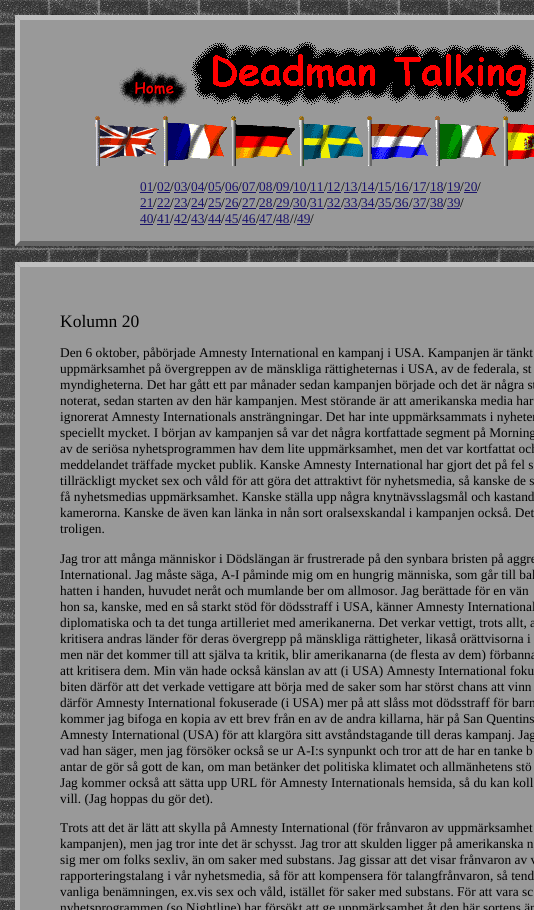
#include <cairo.h>
#include <math.h>
#include <stddef.h>

typedef struct { const char *family; double size; int italic, bold; unsigned color; } style_t;
static cairo_t *ctx;

static void ink(unsigned color) {
    cairo_set_source_rgb(ctx, (color >> 16) / 255.0, (color >> 8 & 255) / 255.0, (color & 255) / 255.0);
}

static void write(double x, double y, const char *s, const style_t *st) {
    cairo_select_font_face(ctx, st->family, st->italic ? CAIRO_FONT_SLANT_ITALIC : CAIRO_FONT_SLANT_NORMAL,
        st->bold ? CAIRO_FONT_WEIGHT_BOLD : CAIRO_FONT_WEIGHT_NORMAL);
    cairo_set_font_size(ctx, st->size);
    ink(st->color);
    cairo_move_to(ctx, x, y);
    cairo_show_text(ctx, s);
}

static void block(double x, double y, double w, double h, unsigned color) {
    ink(color);
    cairo_rectangle(ctx, x, y, w, h);
    cairo_fill(ctx);
}

static void paste(const char *path, double x, double y, double w, double h) {
    cairo_surface_t *image = cairo_image_surface_create_from_png(path);
    cairo_save(ctx);
    cairo_set_source_surface(ctx, image, x, y);
    cairo_rectangle(ctx, x, y, w, h);
    cairo_fill(ctx);
    cairo_restore(ctx);
    cairo_surface_destroy(image);
}

static const style_t s1 = {"Liberation Serif", 13.35, 0, 0, 0x1a136c};
static const style_t s2 = {"Liberation Serif", 13.35, 0, 0, 0x000000};
static const style_t s3 = {"Liberation Serif", 17.5, 0, 0, 0x000000};

int main(void) {
    cairo_surface_t *surface = cairo_image_surface_create(CAIRO_FORMAT_RGB24, 534, 910);
    ctx = cairo_create(surface);
    cairo_font_options_t *options = cairo_font_options_create();
    cairo_font_options_set_hint_metrics(options, CAIRO_HINT_METRICS_OFF);
    cairo_font_options_set_hint_style(options, CAIRO_HINT_STYLE_NONE);
    cairo_set_font_options(ctx, options);
    cairo_set_miter_limit(ctx, 4);
    ink(0xffffff);
    cairo_paint(ctx);
    paste("pic1.png", 0, 0, 534, 910);
    block(15, 15, 519, 231, 0x999999);
    ink(0xc0c0c0);
    cairo_new_path(ctx);
    cairo_move_to(ctx, 15, 15);
    cairo_line_to(ctx, 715, 15);
    cairo_line_to(ctx, 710, 20);
    cairo_line_to(ctx, 20, 20);
    cairo_close_path(ctx);
    cairo_fill(ctx);
    ink(0x666666);
    cairo_new_path(ctx);
    cairo_move_to(ctx, 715, 246);
    cairo_line_to(ctx, 15, 246);
    cairo_line_to(ctx, 20, 241);
    cairo_line_to(ctx, 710, 241);
    cairo_close_path(ctx);
    cairo_fill(ctx);
    ink(0xc0c0c0);
    cairo_new_path(ctx);
    cairo_move_to(ctx, 15, 246);
    cairo_line_to(ctx, 15, 15);
    cairo_line_to(ctx, 20, 20);
    cairo_line_to(ctx, 20, 241);
    cairo_close_path(ctx);
    cairo_fill(ctx);
    paste("pic2.png", 119, 67, 68, 41);
    paste("pic3.png", 191, 42, 343, 70);
    paste("pic4.png", 95, 116, 64, 50);
    paste("pic5.png", 163, 116, 64, 50);
    paste("pic6.png", 231, 116, 64, 50);
    paste("pic7.png", 299, 116, 64, 50);
    paste("pic8.png", 367, 116, 64, 50);
    paste("pic9.png", 435, 116, 64, 50);
    paste("pic10.png", 503, 116, 31, 50);
    write(140, 191, "01", &s1);
    block(140, 192, 13, 1, 0x1a136c);
    write(153, 191, "/", &s2);
    write(157, 191, "02", &s1);
    block(157, 192, 13, 1, 0x1a136c);
    write(170, 191, "/", &s2);
    write(174, 191, "03", &s1);
    block(174, 192, 13, 1, 0x1a136c);
    write(187, 191, "/", &s2);
    write(191, 191, "04", &s1);
    block(191, 192, 13, 1, 0x1a136c);
    write(204, 191, "/", &s2);
    write(208, 191, "05", &s1);
    block(208, 192, 13, 1, 0x1a136c);
    write(221, 191, "/", &s2);
    write(225, 191, "06", &s1);
    block(225, 192, 13, 1, 0x1a136c);
    write(238, 191, "/", &s2);
    write(242, 191, "07", &s1);
    block(242, 192, 14, 1, 0x1a136c);
    write(256, 191, "/", &s2);
    write(259, 191, "08", &s1);
    block(259, 192, 14, 1, 0x1a136c);
    write(273, 191, "/", &s2);
    write(276, 191, "09", &s1);
    block(276, 192, 14, 1, 0x1a136c);
    write(290, 191, "/", &s2);
    write(293, 191, "10", &s1);
    block(293, 192, 14, 1, 0x1a136c);
    write(307, 191, "/", &s2);
    write(310, 191, "11", &s1);
    block(310, 192, 14, 1, 0x1a136c);
    write(324, 191, "/", &s2);
    write(327, 191, "12", &s1);
    block(327, 192, 14, 1, 0x1a136c);
    write(341, 191, "/", &s2);
    write(344, 191, "13", &s1);
    block(344, 192, 14, 1, 0x1a136c);
    write(358, 191, "/", &s2);
    write(361, 191, "14", &s1);
    block(361, 192, 14, 1, 0x1a136c);
    write(375, 191, "/", &s2);
    write(378, 191, "15", &s1);
    block(378, 192, 14, 1, 0x1a136c);
    write(392, 191, "/", &s2);
    write(395, 191, "16", &s1);
    block(395, 192, 14, 1, 0x1a136c);
    write(409, 191, "/", &s2);
    write(413, 191, "17", &s1);
    block(413, 192, 13, 1, 0x1a136c);
    write(426, 191, "/", &s2);
    write(430, 191, "18", &s1);
    block(430, 192, 13, 1, 0x1a136c);
    write(443, 191, "/", &s2);
    write(447, 191, "19", &s1);
    block(447, 192, 13, 1, 0x1a136c);
    write(460, 191, "/", &s2);
    write(464, 191, "20", &s1);
    block(464, 192, 13, 1, 0x1a136c);
    write(477, 191, "/", &s2);
    write(140, 207, "21", &s1);
    block(140, 208, 13, 1, 0x1a136c);
    write(153, 207, "/", &s2);
    write(157, 207, "22", &s1);
    block(157, 208, 13, 1, 0x1a136c);
    write(170, 207, "/", &s2);
    write(174, 207, "23", &s1);
    block(174, 208, 13, 1, 0x1a136c);
    write(187, 207, "/", &s2);
    write(191, 207, "24", &s1);
    block(191, 208, 13, 1, 0x1a136c);
    write(204, 207, "/", &s2);
    write(208, 207, "25", &s1);
    block(208, 208, 13, 1, 0x1a136c);
    write(221, 207, "/", &s2);
    write(225, 207, "26", &s1);
    block(225, 208, 13, 1, 0x1a136c);
    write(238, 207, "/", &s2);
    write(242, 207, "27", &s1);
    block(242, 208, 14, 1, 0x1a136c);
    write(256, 207, "/", &s2);
    write(259, 207, "28", &s1);
    block(259, 208, 14, 1, 0x1a136c);
    write(273, 207, "/", &s2);
    write(276, 207, "29", &s1);
    block(276, 208, 14, 1, 0x1a136c);
    write(290, 207, "/", &s2);
    write(293, 207, "30", &s1);
    block(293, 208, 14, 1, 0x1a136c);
    write(307, 207, "/", &s2);
    write(310, 207, "31", &s1);
    block(310, 208, 14, 1, 0x1a136c);
    write(324, 207, "/", &s2);
    write(327, 207, "32", &s1);
    block(327, 208, 14, 1, 0x1a136c);
    write(341, 207, "/", &s2);
    write(344, 207, "33", &s1);
    block(344, 208, 14, 1, 0x1a136c);
    write(358, 207, "/", &s2);
    write(361, 207, "34", &s1);
    block(361, 208, 14, 1, 0x1a136c);
    write(375, 207, "/", &s2);
    write(378, 207, "35", &s1);
    block(378, 208, 14, 1, 0x1a136c);
    write(392, 207, "/", &s2);
    write(395, 207, "36", &s1);
    block(395, 208, 14, 1, 0x1a136c);
    write(409, 207, "/", &s2);
    write(413, 207, "37", &s1);
    block(413, 208, 13, 1, 0x1a136c);
    write(426, 207, "/", &s2);
    write(430, 207, "38", &s1);
    block(430, 208, 13, 1, 0x1a136c);
    write(443, 207, "/", &s2);
    write(447, 207, "39", &s1);
    block(447, 208, 13, 1, 0x1a136c);
    write(460, 207, "/", &s2);
    write(140, 223, "40", &s1);
    block(140, 224, 13, 1, 0x1a136c);
    write(153, 223, "/", &s2);
    write(157, 223, "41", &s1);
    block(157, 224, 13, 1, 0x1a136c);
    write(170, 223, "/", &s2);
    write(174, 223, "42", &s1);
    block(174, 224, 13, 1, 0x1a136c);
    write(187, 223, "/", &s2);
    write(191, 223, "43", &s1);
    block(191, 224, 13, 1, 0x1a136c);
    write(204, 223, "/", &s2);
    write(208, 223, "44", &s1);
    block(208, 224, 13, 1, 0x1a136c);
    write(221, 223, "/", &s2);
    write(225, 223, "45", &s1);
    block(225, 224, 13, 1, 0x1a136c);
    write(238, 223, "/", &s2);
    write(242, 223, "46", &s1);
    block(242, 224, 14, 1, 0x1a136c);
    write(256, 223, "/", &s2);
    write(259, 223, "47", &s1);
    block(259, 224, 14, 1, 0x1a136c);
    write(273, 223, "/", &s2);
    write(276, 223, "48", &s1);
    block(276, 224, 14, 1, 0x1a136c);
    write(290, 223, "//", &s2);
    write(297, 223, "49", &s1);
    block(297, 224, 13, 1, 0x1a136c);
    write(310, 223, "/", &s2);
    block(15, 262, 519, 648, 0x999999);
    ink(0xc0c0c0);
    cairo_new_path(ctx);
    cairo_move_to(ctx, 15, 262);
    cairo_line_to(ctx, 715, 262);
    cairo_line_to(ctx, 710, 267);
    cairo_line_to(ctx, 20, 267);
    cairo_close_path(ctx);
    cairo_fill(ctx);
    cairo_new_path(ctx);
    cairo_move_to(ctx, 15, 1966);
    cairo_line_to(ctx, 15, 262);
    cairo_line_to(ctx, 20, 267);
    cairo_line_to(ctx, 20, 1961);
    cairo_close_path(ctx);
    cairo_fill(ctx);
    write(60, 327, "Kolumn 20", &s3);
    write(60, 357, "Den 6 oktober, påbörjade Amnesty International en kampanj i USA. Kampanjen är tänkt", &s2);
    write(60, 373, "uppmärksamhet på övergreppen av de mänskliga rättigheternas i USA, av de federala, st", &s2);
    write(60, 389, "myndigheterna. Det har gått ett par månader sedan kampanjen började och det är några st", &s2);
    write(60, 405, "noterat, sedan starten av den här kampanjen. Mest störande är att amerikanska media har", &s2);
    write(60, 421, "ignorerat Amnesty Internationals ansträngningar. Det har inte uppmärksammats i nyheter", &s2);
    write(60, 437, "speciellt mycket. I början av kampanjen så var det några kortfattade segment på Morning", &s2);
    write(60, 453, "av de seriösa nyhetsprogrammen hav dem lite uppmärksamhet, men det var kortfattat och", &s2);
    write(60, 469, "meddelandet träffade mycket publik. Kanske Amnesty International har gjort det på fel s", &s2);
    write(60, 485, "tillräckligt mycket sex och våld för att göra det attraktivt för nyhetsmedia, så kanske de s", &s2);
    write(60, 501, "få nyhetsmedias uppmärksamhet. Kanske ställa upp några knytnävsslagsmål och kastand", &s2);
    write(60, 517, "kamerorna. Kanske de även kan länka in nån sort oralsexskandal i kampanjen också. Det", &s2);
    write(60, 533, "troligen.", &s2);
    write(60, 563, "Jag tror att många människor i Dödslängan är frustrerade på den synbara bristen på aggre", &s2);
    write(60, 579, "International. Jag måste säga, A-I påminde mig om en hungrig människa, som går till bak", &s2);
    write(60, 595, "hatten i handen, huvudet neråt och mumlande ber om allmosor. Jag berättade för en vän", &s2);
    write(60, 611, "hon sa, kanske, med en så starkt stöd för dödsstraff i USA, känner Amnesty International", &s2);
    write(60, 627, "diplomatiska och ta det tunga artilleriet med amerikanerna. Det verkar vettigt, trots allt, a", &s2);
    write(60, 643, "kritisera andras länder för deras övergrepp på mänskliga rättigheter, likaså orättvisorna i", &s2);
    write(60, 659, "men när det kommer till att själva ta kritik, blir amerikanarna (de flesta av dem) förbanna", &s2);
    write(60, 675, "att kritisera dem. Min vän hade också känslan av att (i USA) Amnesty International foku", &s2);
    write(60, 691, "biten därför att det verkade vettigare att börja med de saker som har störst chans att vinn", &s2);
    write(60, 707, "därför Amnesty International fokuserade (i USA) mer på att slåss mot dödsstraff för barn", &s2);
    write(60, 723, "kommer jag bifoga en kopia av ett brev från en av de andra killarna, här på San Quentins", &s2);
    write(60, 739, "Amnesty International (USA) för att klargöra sitt avståndstagande till deras kampanj. Jag", &s2);
    write(60, 755, "vad han säger, men jag försöker också se ur A-I:s synpunkt och tror att de har en tanke b", &s2);
    write(60, 771, "antar de gör så gott de kan, om man betänker det politiska klimatet och allmänhetens stö", &s2);
    write(60, 787, "Jag kommer också att sätta upp URL för Amnesty Internationals hemsida, så du kan koll", &s2);
    write(60, 803, "vill. (Jag hoppas du gör det).", &s2);
    write(60, 832, "Trots att det är lätt att skylla på Amnesty International (för frånvaron av uppmärksamhet", &s2);
    write(60, 848, "kampanjen), men jag tror inte det är schysst. Jag tror att skulden ligger på amerikanska n", &s2);
    write(60, 864, "sig mer om folks sexliv, än om saker med substans. Jag gissar att det visar frånvaron av v", &s2);
    write(60, 880, "rapporteringstalang i vår nyhetsmedia, så för att kompensera för talangfrånvaron, så tend", &s2);
    write(60, 896, "vanliga benämningen, ex.vis sex och våld, istället för saker med substans. För att vara sc", &s2);
    write(60, 912, "nyhetsprogrammen (so Nightline) har försökt att ge uppmärksamhet åt den här sortens äm", &s2);
    cairo_surface_write_to_png(surface, "screenshot.png");
    cairo_font_options_destroy(options);
    cairo_destroy(ctx);
    cairo_surface_destroy(surface);
    return 0;
}
